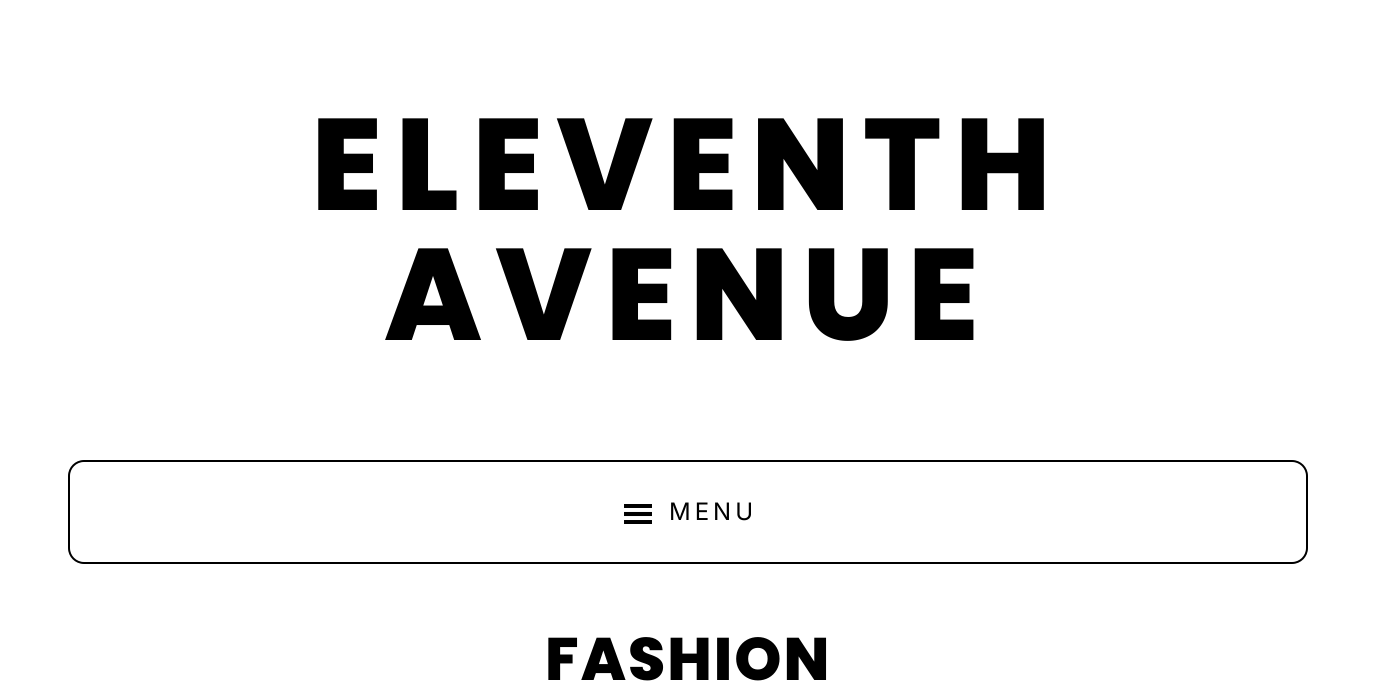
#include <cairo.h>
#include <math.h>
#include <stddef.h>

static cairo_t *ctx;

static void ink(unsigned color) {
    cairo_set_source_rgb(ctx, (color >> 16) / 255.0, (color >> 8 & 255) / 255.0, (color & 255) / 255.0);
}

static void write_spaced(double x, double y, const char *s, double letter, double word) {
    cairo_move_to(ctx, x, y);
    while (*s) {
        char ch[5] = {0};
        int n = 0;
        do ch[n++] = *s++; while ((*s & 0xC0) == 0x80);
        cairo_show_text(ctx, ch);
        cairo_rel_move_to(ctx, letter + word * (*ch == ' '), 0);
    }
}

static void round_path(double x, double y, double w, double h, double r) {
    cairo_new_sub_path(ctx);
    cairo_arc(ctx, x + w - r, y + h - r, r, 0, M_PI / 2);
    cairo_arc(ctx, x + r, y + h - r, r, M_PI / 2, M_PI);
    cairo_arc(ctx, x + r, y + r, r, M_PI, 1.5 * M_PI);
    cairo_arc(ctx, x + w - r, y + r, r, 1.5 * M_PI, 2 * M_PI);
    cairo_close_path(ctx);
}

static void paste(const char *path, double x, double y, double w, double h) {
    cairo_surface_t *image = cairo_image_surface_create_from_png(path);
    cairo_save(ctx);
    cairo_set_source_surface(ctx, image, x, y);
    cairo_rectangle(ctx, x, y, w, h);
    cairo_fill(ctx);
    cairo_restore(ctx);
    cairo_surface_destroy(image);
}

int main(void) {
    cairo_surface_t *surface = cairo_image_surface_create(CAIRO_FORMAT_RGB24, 1376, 697);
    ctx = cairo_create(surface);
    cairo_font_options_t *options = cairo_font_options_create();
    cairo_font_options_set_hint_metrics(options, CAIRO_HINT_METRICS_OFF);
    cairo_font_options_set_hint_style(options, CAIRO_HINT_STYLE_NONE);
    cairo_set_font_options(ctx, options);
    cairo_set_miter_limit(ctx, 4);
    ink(0xffffff);
    cairo_paint(ctx);
    cairo_select_font_face(ctx, "Poppins ExtraBold", CAIRO_FONT_SLANT_NORMAL, CAIRO_FONT_WEIGHT_NORMAL);
    cairo_set_font_size(ctx, 130);
    ink(0x000000);
    write_spaced(311, 210, "ELEVENTH", 13, 0);
    write_spaced(384, 340, "AVENUE", 13, 0);
    round_path(69, 461, 1238, 102, 15);
    cairo_stroke(ctx);
    paste("pic1.png", 624, 504, 28, 20);
    cairo_select_font_face(ctx, "Inter", CAIRO_FONT_SLANT_NORMAL, CAIRO_FONT_WEIGHT_NORMAL);
    cairo_set_font_size(ctx, 24);
    write_spaced(669, 520, "MENU", 4, 0);
    cairo_select_font_face(ctx, "Poppins ExtraBold", CAIRO_FONT_SLANT_NORMAL, CAIRO_FONT_WEIGHT_NORMAL);
    cairo_set_font_size(ctx, 60);
    write_spaced(545, 680, "FASHION", 2, 0);
    cairo_surface_write_to_png(surface, "screenshot.png");
    cairo_font_options_destroy(options);
    cairo_destroy(ctx);
    cairo_surface_destroy(surface);
    return 0;
}
